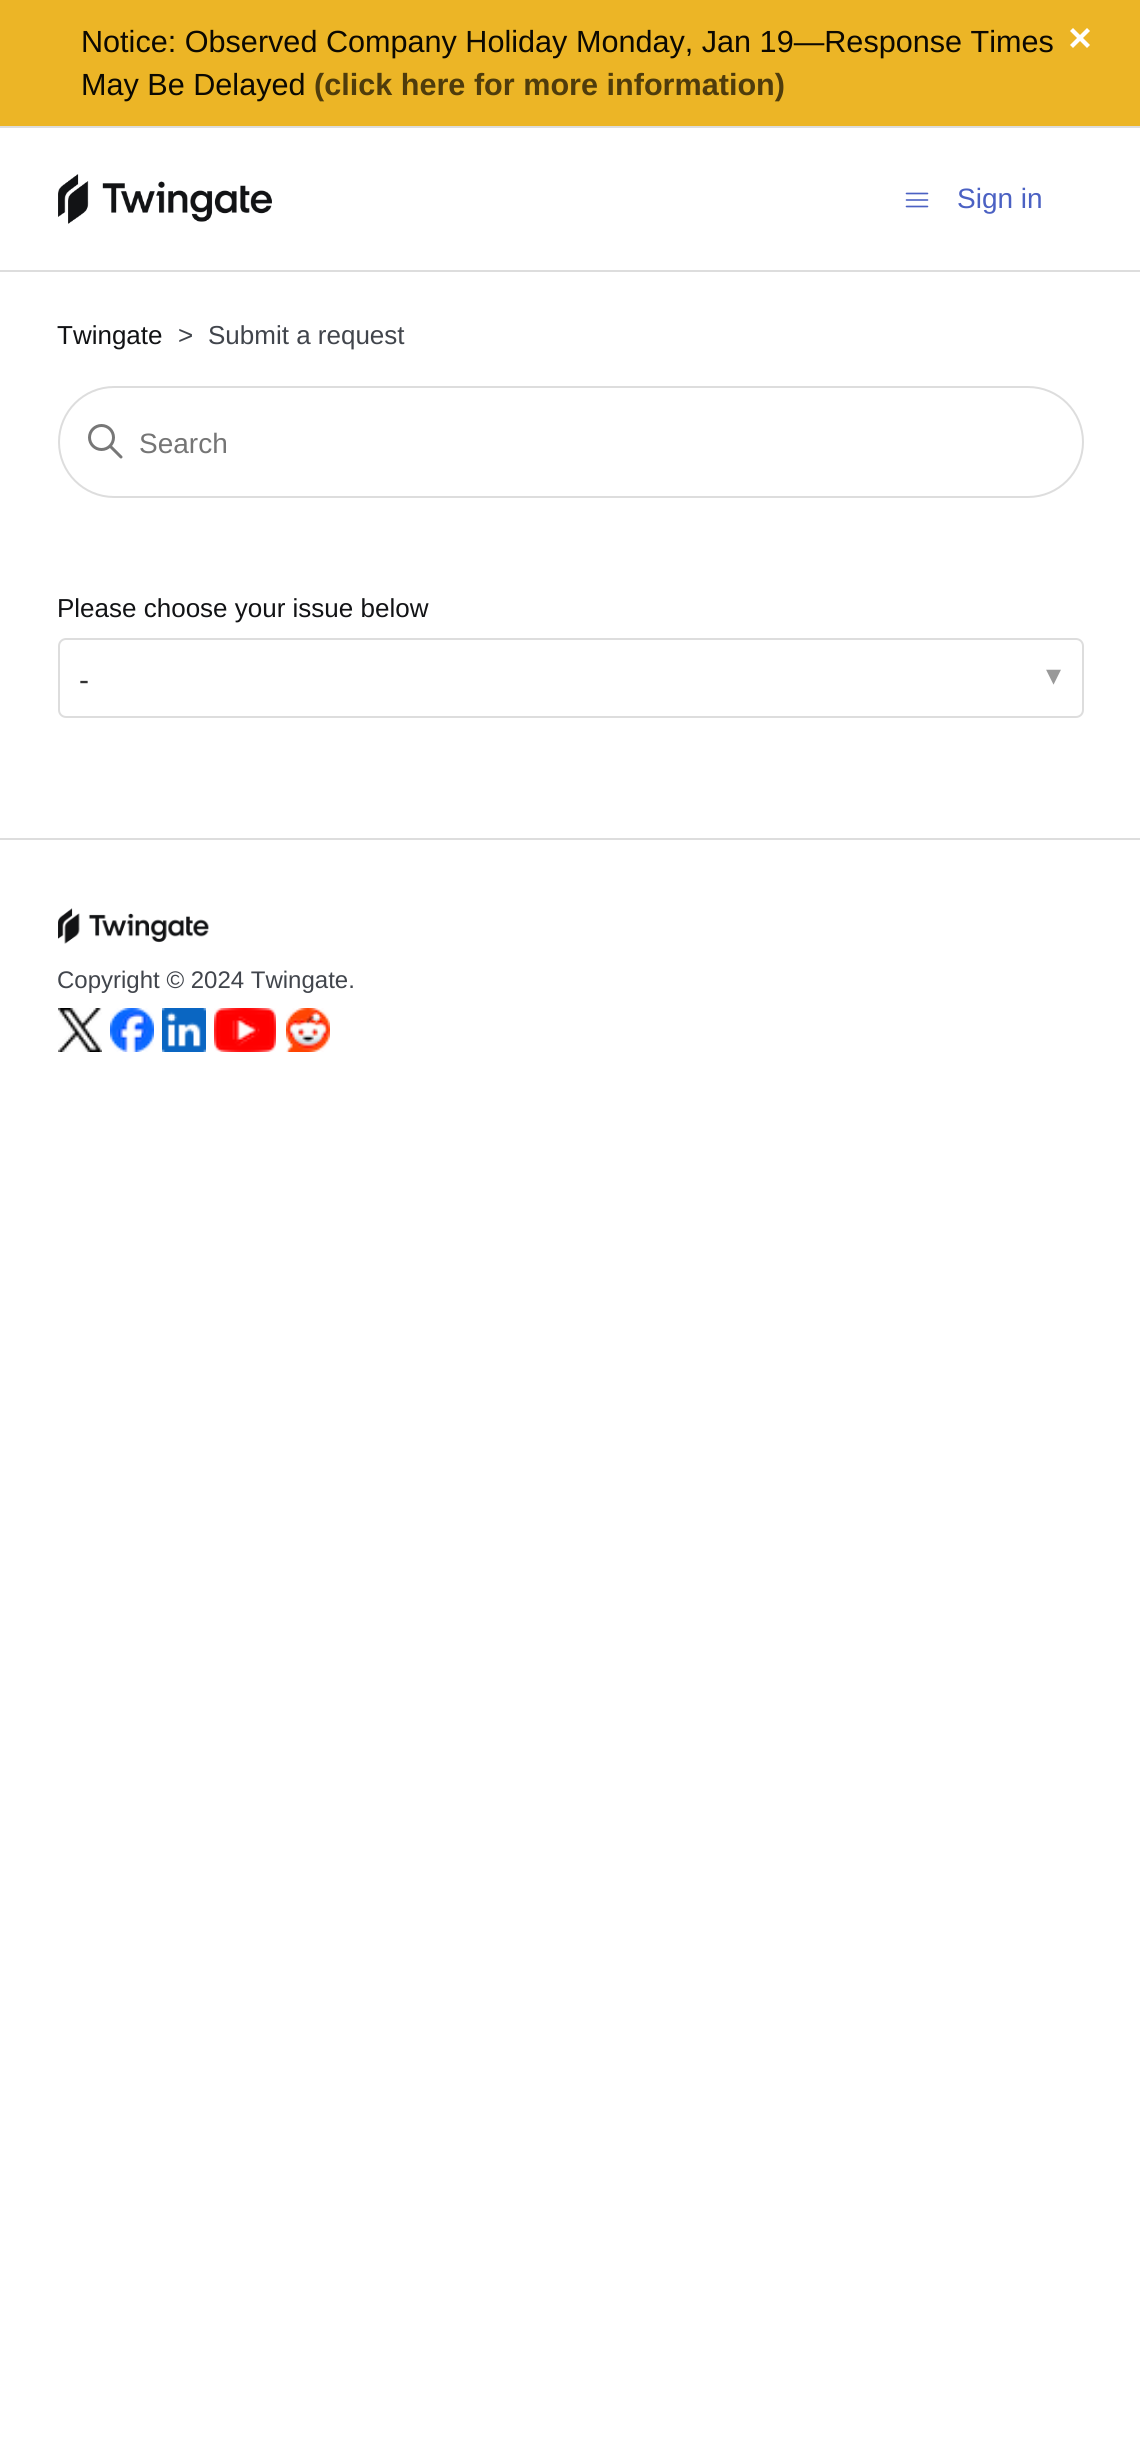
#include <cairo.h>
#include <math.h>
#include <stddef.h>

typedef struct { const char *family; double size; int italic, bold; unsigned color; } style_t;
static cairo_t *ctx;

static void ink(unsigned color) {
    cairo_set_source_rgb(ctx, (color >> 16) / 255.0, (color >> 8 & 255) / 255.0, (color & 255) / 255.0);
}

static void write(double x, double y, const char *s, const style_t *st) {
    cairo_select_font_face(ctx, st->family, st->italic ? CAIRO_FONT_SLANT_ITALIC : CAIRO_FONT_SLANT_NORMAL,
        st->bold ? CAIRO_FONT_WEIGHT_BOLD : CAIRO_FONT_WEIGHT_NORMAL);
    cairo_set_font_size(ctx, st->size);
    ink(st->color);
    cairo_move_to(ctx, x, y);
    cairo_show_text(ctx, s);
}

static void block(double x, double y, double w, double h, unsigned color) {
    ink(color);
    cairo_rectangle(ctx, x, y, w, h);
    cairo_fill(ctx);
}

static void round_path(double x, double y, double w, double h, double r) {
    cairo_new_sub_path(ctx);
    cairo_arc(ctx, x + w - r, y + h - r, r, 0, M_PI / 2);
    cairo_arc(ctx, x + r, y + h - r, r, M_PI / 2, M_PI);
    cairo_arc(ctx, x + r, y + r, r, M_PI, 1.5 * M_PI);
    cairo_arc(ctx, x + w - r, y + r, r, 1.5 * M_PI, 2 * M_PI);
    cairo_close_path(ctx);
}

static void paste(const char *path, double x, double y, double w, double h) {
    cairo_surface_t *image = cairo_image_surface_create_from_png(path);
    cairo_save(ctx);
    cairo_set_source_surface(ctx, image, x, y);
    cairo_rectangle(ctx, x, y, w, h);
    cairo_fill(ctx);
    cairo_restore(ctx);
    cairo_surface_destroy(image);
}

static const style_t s1 = {"Liberation Sans", 30.6, 0, 0, 0x0c0902};
static const style_t s2 = {"Liberation Sans", 30.6, 0, 1, 0x4f3c0c};
static const style_t s3 = {"Liberation Sans", 28, 0, 0, 0x4b61c3};
static const style_t s4 = {"Liberation Sans", 26, 0, 0, 0x121315};
static const style_t s5 = {"Liberation Sans", 26, 0, 0, 0x41454c};
static const style_t s6 = {"Liberation Sans", 28, 0, 0, 0x757575};
static const style_t s7 = {"Liberation Sans", 30, 0, 0, 0x333333};
static const style_t s8 = {"DejaVu Sans", 30, 0, 0, 0x999999};
static const style_t s9 = {"Liberation Sans", 24, 0, 0, 0x41454c};

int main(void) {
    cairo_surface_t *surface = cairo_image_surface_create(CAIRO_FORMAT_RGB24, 1140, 2447);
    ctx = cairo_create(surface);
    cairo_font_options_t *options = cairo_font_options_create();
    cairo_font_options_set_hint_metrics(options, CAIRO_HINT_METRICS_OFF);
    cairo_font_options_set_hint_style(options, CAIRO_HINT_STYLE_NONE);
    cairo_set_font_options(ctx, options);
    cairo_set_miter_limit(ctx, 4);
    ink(0xffffff);
    cairo_paint(ctx);
    block(0, 0, 1140, 126, 0xecb526);
    block(0, 126, 1140, 2, 0xdddddd);
    write(81, 52, "Notice: Observed Company Holiday Monday, Jan 19—Response Times", &s1);
    write(81, 95, "May Be Delayed", &s1);
    write(314, 95, "(click here for more information)", &s2);
    ink(0xffffff);
    cairo_new_path(ctx);
    cairo_move_to(ctx, 1087, 28);
    cairo_line_to(ctx, 1090, 31);
    cairo_line_to(ctx, 1073, 48);
    cairo_line_to(ctx, 1070, 45);
    cairo_close_path(ctx);
    cairo_fill(ctx);
    cairo_new_path(ctx);
    cairo_move_to(ctx, 1070, 31);
    cairo_line_to(ctx, 1073, 28);
    cairo_line_to(ctx, 1090, 45);
    cairo_line_to(ctx, 1087, 48);
    cairo_close_path(ctx);
    cairo_fill(ctx);
    paste("pic1.png", 58, 174, 214, 50);
    cairo_new_path(ctx);
    cairo_move_to(ctx, 906.5, 193.5);
    cairo_line_to(ctx, 927.5, 193.5);
    cairo_move_to(ctx, 906.5, 200);
    cairo_line_to(ctx, 927.5, 200);
    cairo_move_to(ctx, 906.5, 206.5);
    cairo_line_to(ctx, 927.5, 206.5);
    ink(0x4b61c3);
    cairo_set_line_width(ctx, 1.6);
    cairo_set_line_cap(ctx, CAIRO_LINE_CAP_ROUND);
    cairo_stroke(ctx);
    write(957, 208, "Sign in", &s3);
    block(0, 270, 1140, 2, 0xdddddd);
    write(57, 344, "Twingate", &s4);
    write(178, 344, ">", &s5);
    write(208, 344, "Submit a request", &s5);
    round_path(59, 387, 1024, 110, 55);
    ink(0xdddddd);
    cairo_set_line_width(ctx, 2);
    cairo_set_line_cap(ctx, CAIRO_LINE_CAP_BUTT);
    cairo_stroke(ctx);
    cairo_arc(ctx, 101.5, 437.5, 12, 0, 2 * M_PI);
    ink(0x777777);
    cairo_set_line_width(ctx, 3);
    cairo_stroke(ctx);
    cairo_new_path(ctx);
    cairo_move_to(ctx, 121, 457);
    cairo_line_to(ctx, 110.5, 446.5);
    cairo_set_line_cap(ctx, CAIRO_LINE_CAP_ROUND);
    cairo_stroke(ctx);
    write(139, 453, "Search", &s6);
    write(57, 617, "Please choose your issue below", &s4);
    round_path(59, 639, 1024, 78, 7);
    ink(0xdddddd);
    cairo_set_line_width(ctx, 2);
    cairo_set_line_cap(ctx, CAIRO_LINE_CAP_BUTT);
    cairo_stroke(ctx);
    write(79, 690, "-", &s7);
    write(1046, 685, "▾", &s8);
    block(0, 838, 1140, 2, 0xdddddd);
    paste("pic2.png", 58, 908, 151, 36);
    write(57, 988, "Copyright © 2024 Twingate.", &s9);
    paste("pic3.png", 58, 1008, 44, 44);
    paste("pic4.png", 110, 1008, 44, 44);
    paste("pic5.png", 162, 1008, 44, 44);
    paste("pic6.png", 214, 1008, 62, 44);
    paste("pic7.png", 286, 1008, 44, 44);
    cairo_surface_write_to_png(surface, "screenshot.png");
    cairo_font_options_destroy(options);
    cairo_destroy(ctx);
    cairo_surface_destroy(surface);
    return 0;
}
